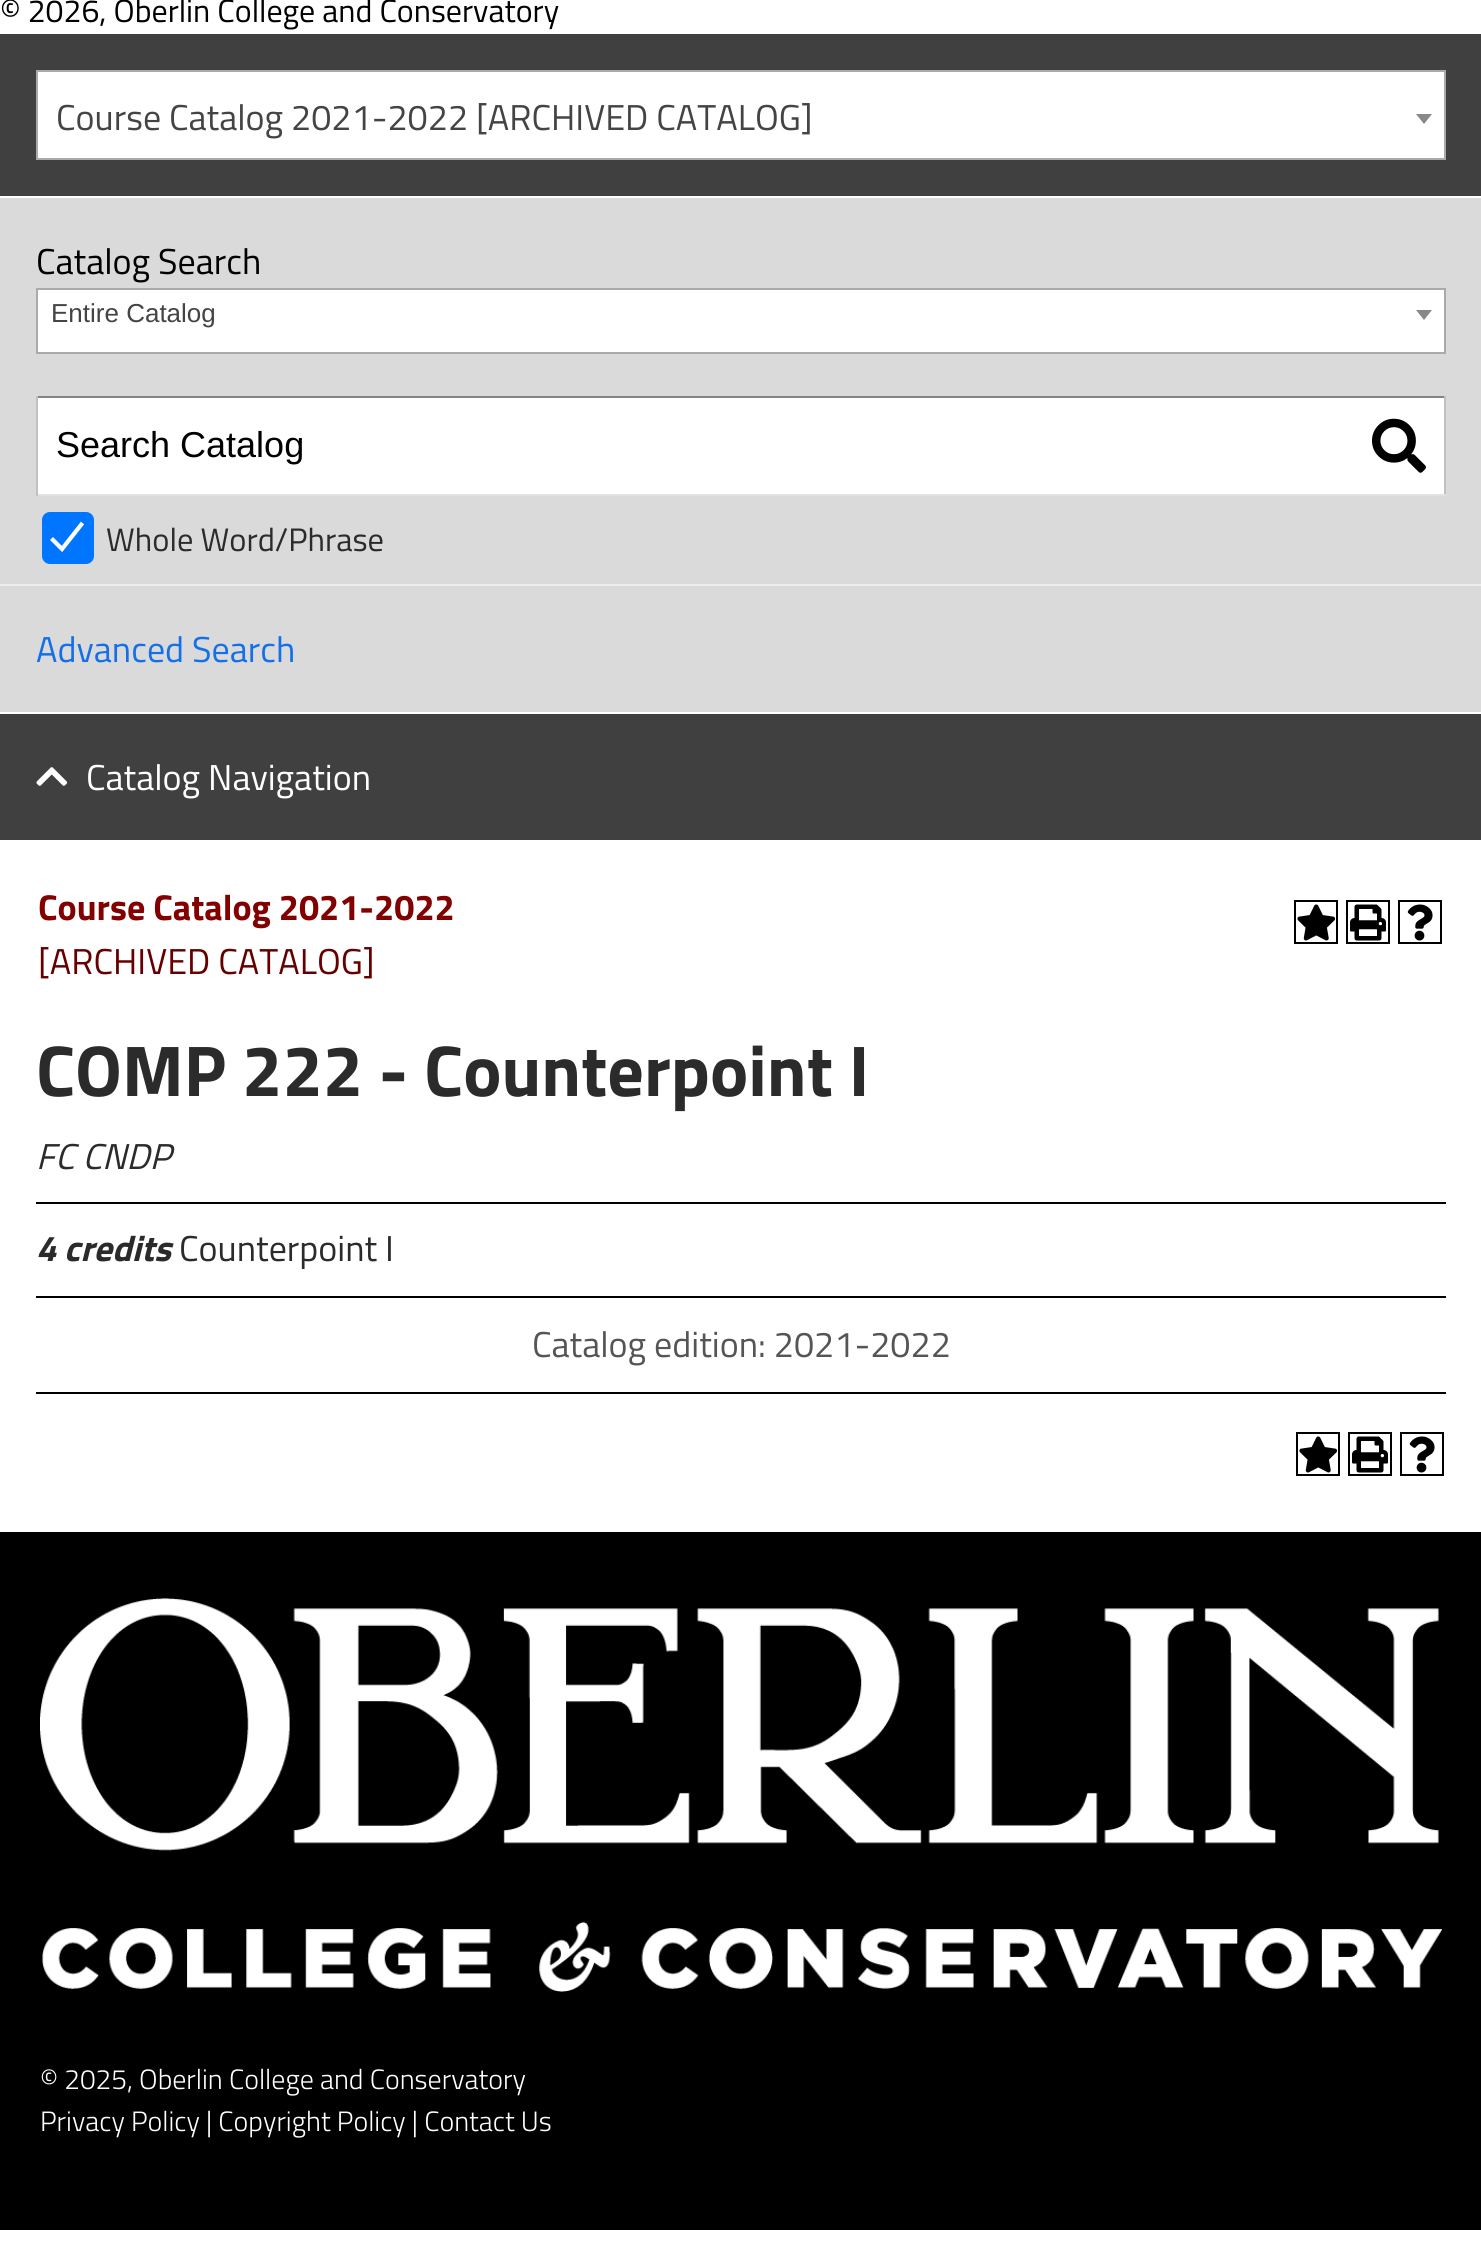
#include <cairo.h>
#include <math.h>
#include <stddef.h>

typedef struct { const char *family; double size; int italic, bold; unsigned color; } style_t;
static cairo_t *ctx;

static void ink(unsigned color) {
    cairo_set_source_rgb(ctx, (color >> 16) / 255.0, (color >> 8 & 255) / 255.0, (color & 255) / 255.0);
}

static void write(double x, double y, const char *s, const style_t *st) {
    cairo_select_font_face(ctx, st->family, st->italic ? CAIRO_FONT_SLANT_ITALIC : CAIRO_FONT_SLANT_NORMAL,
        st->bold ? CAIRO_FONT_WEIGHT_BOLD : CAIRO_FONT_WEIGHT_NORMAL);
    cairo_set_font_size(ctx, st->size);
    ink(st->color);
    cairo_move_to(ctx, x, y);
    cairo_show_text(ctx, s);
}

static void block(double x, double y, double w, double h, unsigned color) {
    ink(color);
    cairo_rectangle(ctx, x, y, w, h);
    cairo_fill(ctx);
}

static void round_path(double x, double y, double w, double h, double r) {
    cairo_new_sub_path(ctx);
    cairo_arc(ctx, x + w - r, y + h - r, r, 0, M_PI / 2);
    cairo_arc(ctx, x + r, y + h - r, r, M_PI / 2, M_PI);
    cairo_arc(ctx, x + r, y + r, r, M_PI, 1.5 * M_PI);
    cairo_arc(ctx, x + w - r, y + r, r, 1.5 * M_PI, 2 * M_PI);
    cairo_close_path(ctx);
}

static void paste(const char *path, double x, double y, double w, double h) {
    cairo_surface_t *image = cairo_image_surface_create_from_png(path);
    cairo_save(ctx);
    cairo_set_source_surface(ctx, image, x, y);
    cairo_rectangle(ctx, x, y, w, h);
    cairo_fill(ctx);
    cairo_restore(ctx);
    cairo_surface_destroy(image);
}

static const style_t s1 = {"Titillium Web", 32, 0, 0, 0x000000};
static const style_t s2 = {"Titillium Web", 36, 0, 0, 0x444444};
static const style_t s3 = {"Titillium Web", 36, 0, 0, 0x000000};
static const style_t s4 = {"Liberation Sans", 26, 0, 0, 0x444444};
static const style_t s5 = {"Liberation Sans", 36, 0, 0, 0x000000};
static const style_t s6 = {"Titillium Web", 32.5, 0, 0, 0x2b2b2b};
static const style_t s7 = {"Titillium Web", 36, 0, 0, 0x1470e9};
static const style_t s8 = {"Titillium Web", 36, 0, 0, 0xffffff};
static const style_t s9 = {"Titillium Web", 36, 0, 1, 0x820000};
static const style_t s10 = {"Titillium Web", 36, 0, 0, 0x660000};
static const style_t s11 = {"Titillium Web", 72, 0, 1, 0x2b2b2b};
static const style_t s12 = {"Titillium Web", 36, 1, 0, 0x2b2b2b};
static const style_t s13 = {"Titillium Web", 36, 1, 1, 0x2b2b2b};
static const style_t s14 = {"Titillium Web", 36, 0, 0, 0x2b2b2b};
static const style_t s15 = {"Titillium Web", 36, 0, 0, 0x555555};
static const style_t s16 = {"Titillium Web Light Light", 28, 0, 0, 0xffffff};

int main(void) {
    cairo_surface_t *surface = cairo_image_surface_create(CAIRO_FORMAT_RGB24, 1481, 2241);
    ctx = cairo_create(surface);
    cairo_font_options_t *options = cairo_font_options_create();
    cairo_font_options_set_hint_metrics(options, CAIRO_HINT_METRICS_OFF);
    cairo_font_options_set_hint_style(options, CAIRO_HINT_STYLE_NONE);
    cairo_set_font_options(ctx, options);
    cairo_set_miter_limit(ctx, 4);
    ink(0xffffff);
    cairo_paint(ctx);
    write(0, 22, "© 2026, Oberlin College and Conservatory", &s1);
    block(0, 34, 1481, 162, 0x404040);
    ink(0xffffff);
    cairo_rectangle(ctx, 37, 71, 1408, 88);
    cairo_fill_preserve(ctx);
    ink(0xaaaaaa);
    cairo_stroke(ctx);
    write(56, 130, "Course Catalog 2021-2022 [ARCHIVED CATALOG]", &s2);
    ink(0x888888);
    cairo_new_path(ctx);
    cairo_move_to(ctx, 1416, 114);
    cairo_line_to(ctx, 1432, 114);
    cairo_line_to(ctx, 1424, 124);
    cairo_close_path(ctx);
    cairo_fill(ctx);
    block(0, 198, 1481, 514, 0xdadada);
    write(36, 274, "Catalog Search", &s3);
    ink(0xffffff);
    cairo_rectangle(ctx, 37, 289, 1408, 64);
    cairo_fill_preserve(ctx);
    ink(0xaaaaaa);
    cairo_stroke(ctx);
    write(51, 322, "Entire Catalog", &s4);
    ink(0x888888);
    cairo_new_path(ctx);
    cairo_move_to(ctx, 1416, 310);
    cairo_line_to(ctx, 1432, 310);
    cairo_line_to(ctx, 1424, 320);
    cairo_close_path(ctx);
    cairo_fill(ctx);
    block(38, 398, 1406, 96, 0xffffff);
    block(36, 396, 1410, 2, 0x848484);
    block(1444, 396, 2, 100, 0xc1c1c1);
    block(36, 494, 1410, 2, 0xe1e1e1);
    block(36, 396, 2, 100, 0xc1c1c1);
    write(56, 457, "Search Catalog", &s5);
    paste("pic1.png", 1372, 418, 54, 55);
    ink(0x0075ff);
    round_path(42, 512, 52, 52, 8);
    cairo_fill(ctx);
    cairo_new_path(ctx);
    cairo_move_to(ctx, 51.5, 538.5);
    cairo_line_to(ctx, 62, 549);
    cairo_line_to(ctx, 82.5, 523);
    ink(0xffffff);
    cairo_set_line_width(ctx, 4.2);
    cairo_stroke(ctx);
    write(106, 551, "Whole Word/Phrase", &s6);
    block(0, 584, 1481, 2, 0xededed);
    write(36, 662, "Advanced Search", &s7);
    block(0, 714, 1481, 126, 0x404040);
    paste("pic2.png", 36, 767, 32, 19);
    write(86, 790, "Catalog Navigation", &s8);
    write(38, 920, "Course Catalog 2021-2022", &s9);
    cairo_rectangle(ctx, 1295, 901, 42, 42);
    ink(0x000000);
    cairo_set_line_width(ctx, 2);
    cairo_stroke(ctx);
    paste("pic3.png", 1297, 904, 39, 37);
    cairo_rectangle(ctx, 1347, 901, 42, 42);
    cairo_stroke(ctx);
    paste("pic4.png", 1350, 904, 36, 37);
    cairo_rectangle(ctx, 1399, 901, 42, 42);
    cairo_stroke(ctx);
    paste("pic5.png", 1407, 904, 26, 37);
    write(38, 974, "[ARCHIVED CATALOG]", &s10);
    write(36, 1096, "COMP 222 - Counterpoint I", &s11);
    write(36, 1169, "FC CNDP", &s12);
    block(36, 1202, 1410, 2, 0x000000);
    write(36, 1261, "4 credits", &s13);
    write(179, 1261, "Counterpoint I", &s14);
    block(36, 1296, 1410, 2, 0x000000);
    write(532, 1357, "Catalog edition: 2021-2022", &s15);
    block(36, 1392, 1410, 2, 0x000000);
    cairo_rectangle(ctx, 1297, 1433, 42, 42);
    cairo_stroke(ctx);
    paste("pic3.png", 1299, 1436, 39, 37);
    cairo_rectangle(ctx, 1349, 1433, 42, 42);
    cairo_stroke(ctx);
    paste("pic4.png", 1352, 1436, 36, 37);
    cairo_rectangle(ctx, 1401, 1433, 42, 42);
    cairo_stroke(ctx);
    paste("pic5.png", 1409, 1436, 26, 37);
    block(0, 1532, 1481, 698, 0x000000);
    paste("pic6.png", 40, 1598, 1402, 394);
    write(40, 2089, "© 2025, Oberlin College and Conservatory", &s16);
    write(40, 2131, "Privacy Policy | Copyright Policy | Contact Us", &s16);
    cairo_surface_write_to_png(surface, "screenshot.png");
    cairo_font_options_destroy(options);
    cairo_destroy(ctx);
    cairo_surface_destroy(surface);
    return 0;
}
